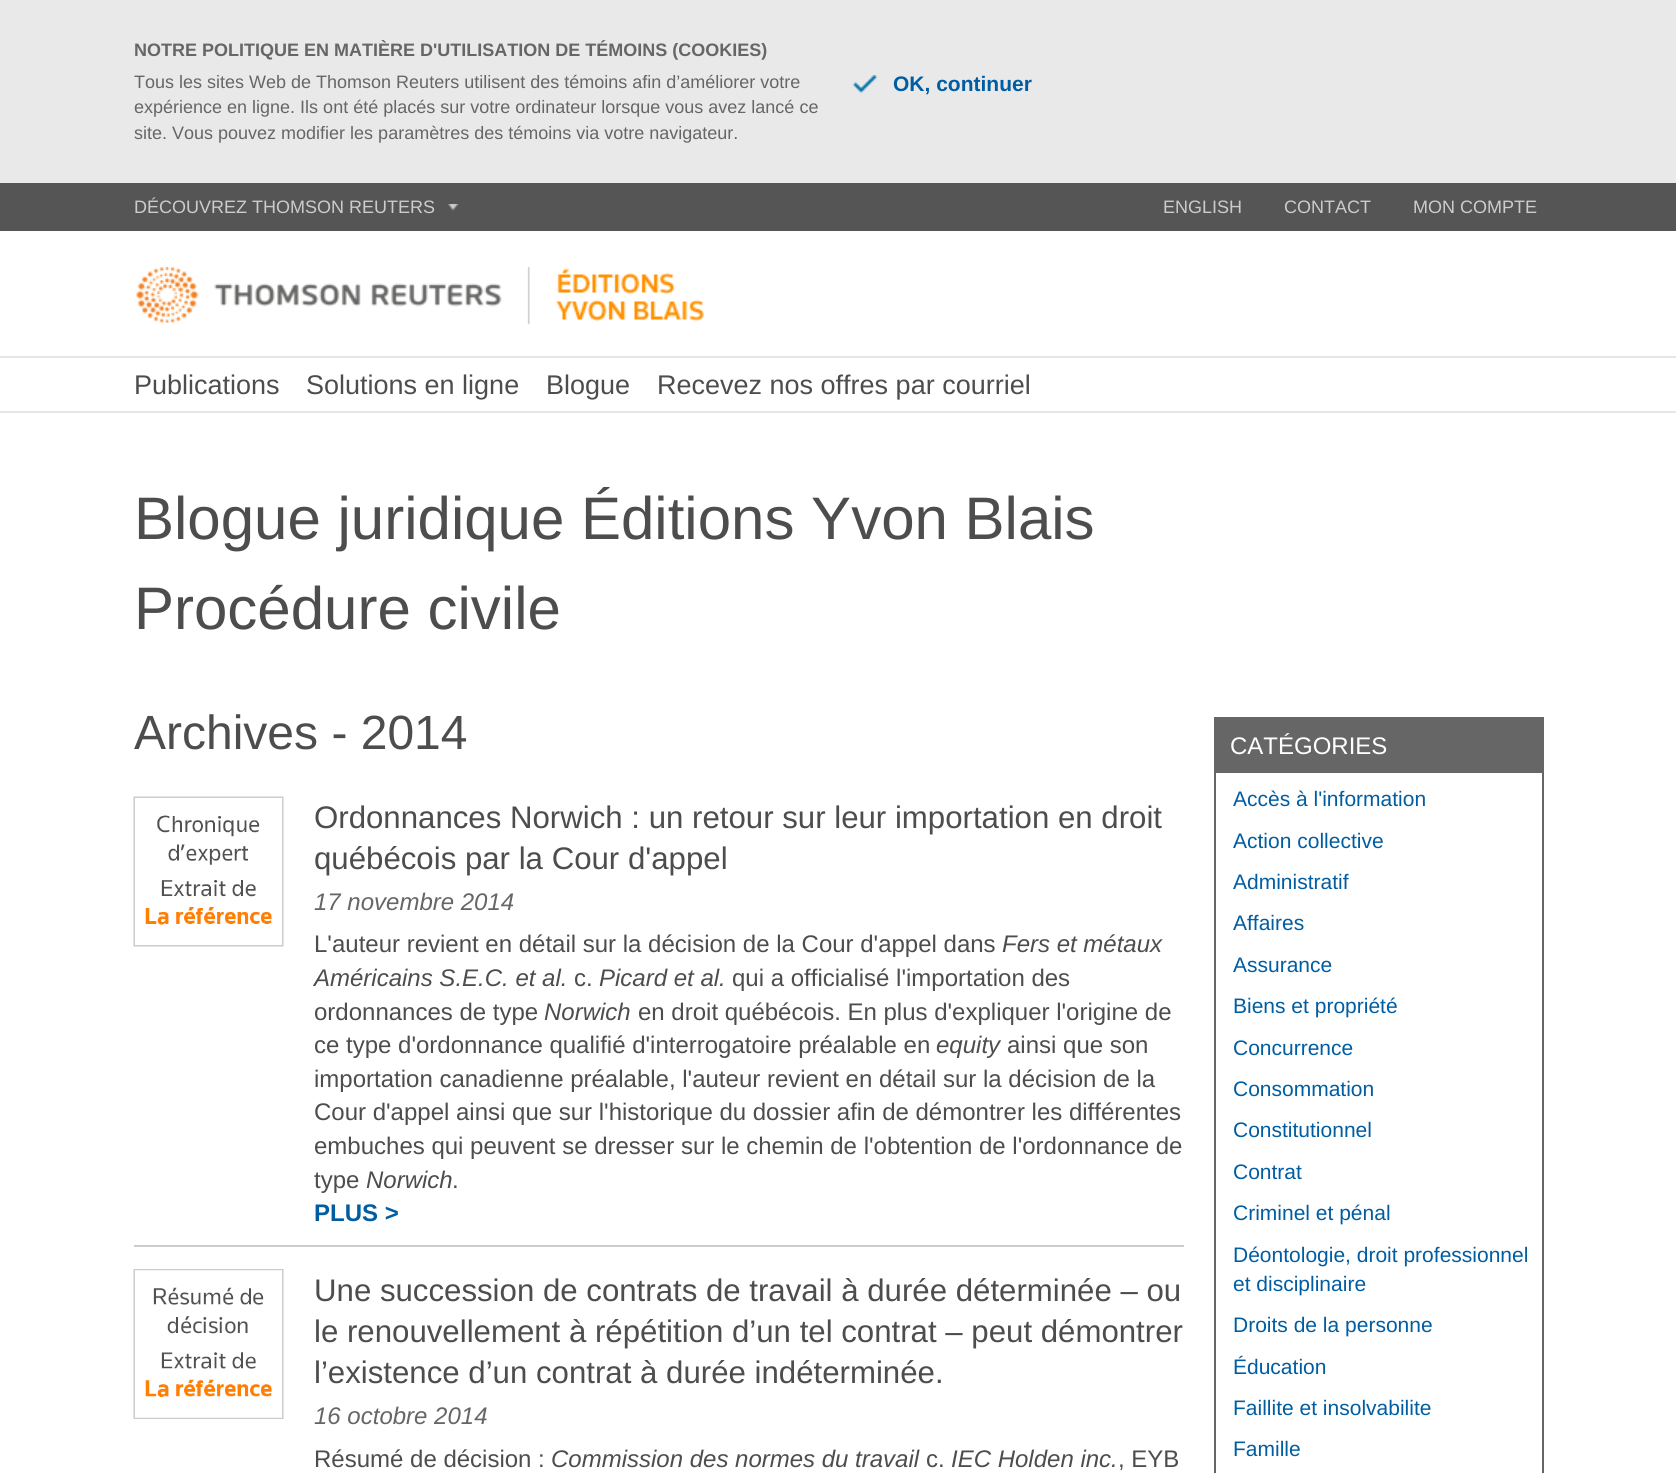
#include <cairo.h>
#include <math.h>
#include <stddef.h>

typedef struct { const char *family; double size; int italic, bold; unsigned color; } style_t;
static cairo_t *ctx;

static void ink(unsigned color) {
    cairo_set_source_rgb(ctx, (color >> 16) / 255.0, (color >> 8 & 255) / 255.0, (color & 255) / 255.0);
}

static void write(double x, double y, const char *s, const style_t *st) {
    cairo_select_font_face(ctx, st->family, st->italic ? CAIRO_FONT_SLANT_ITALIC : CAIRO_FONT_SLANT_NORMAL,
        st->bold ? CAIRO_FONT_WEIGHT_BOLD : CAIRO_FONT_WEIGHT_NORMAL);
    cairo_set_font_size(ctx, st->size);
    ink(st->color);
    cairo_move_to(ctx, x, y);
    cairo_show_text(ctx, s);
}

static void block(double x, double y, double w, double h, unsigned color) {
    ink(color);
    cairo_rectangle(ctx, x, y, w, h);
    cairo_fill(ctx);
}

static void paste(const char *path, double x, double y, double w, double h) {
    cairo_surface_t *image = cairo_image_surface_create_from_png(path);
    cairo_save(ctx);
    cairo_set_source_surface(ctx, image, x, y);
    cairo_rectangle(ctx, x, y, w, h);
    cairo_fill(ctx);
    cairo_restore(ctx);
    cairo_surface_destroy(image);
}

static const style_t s1 = {"Liberation Sans", 18, 0, 1, 0x666666};
static const style_t s2 = {"Liberation Sans", 18, 0, 0, 0x666666};
static const style_t s3 = {"Liberation Sans", 21, 0, 1, 0x005da2};
static const style_t s4 = {"Liberation Sans", 18, 0, 0, 0xcccccc};
static const style_t s5 = {"Liberation Sans", 27, 0, 0, 0x4d4d4d};
static const style_t s6 = {"Liberation Sans", 60, 0, 0, 0x4d4d4d};
static const style_t s7 = {"Liberation Sans", 48, 0, 0, 0x4d4d4d};
static const style_t s8 = {"Liberation Sans", 31.2, 0, 0, 0x4d4d4d};
static const style_t s9 = {"Liberation Sans", 24, 1, 0, 0x666666};
static const style_t s10 = {"Liberation Sans", 24, 0, 0, 0x4d4d4d};
static const style_t s11 = {"Liberation Sans", 24, 1, 0, 0x4d4d4d};
static const style_t s12 = {"Liberation Sans", 24, 0, 1, 0x005da2};
static const style_t s13 = {"Liberation Sans", 24, 0, 0, 0xffffff};
static const style_t s14 = {"Liberation Sans", 21, 0, 0, 0x005da2};

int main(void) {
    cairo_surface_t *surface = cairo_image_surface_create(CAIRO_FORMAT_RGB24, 1676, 1473);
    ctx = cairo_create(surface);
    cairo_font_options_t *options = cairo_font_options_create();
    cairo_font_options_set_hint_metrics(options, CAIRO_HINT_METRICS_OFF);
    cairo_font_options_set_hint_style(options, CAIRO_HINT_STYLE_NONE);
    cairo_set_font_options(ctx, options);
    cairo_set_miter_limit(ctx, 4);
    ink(0xffffff);
    cairo_paint(ctx);
    block(0, 0, 1676, 183, 0xe9e9e9);
    write(134, 56, "NOTRE POLITIQUE EN MATIÈRE D'UTILISATION DE TÉMOINS (COOKIES)", &s1);
    write(134, 88, "Tous les sites Web de Thomson Reuters utilisent des témoins afin d’améliorer votre", &s2);
    write(134, 113, "expérience en ligne. Ils ont été placés sur votre ordinateur lorsque vous avez lancé ce", &s2);
    write(134, 139, "site. Vous pouvez modifier les paramètres des témoins via votre navigateur.", &s2);
    paste("pic1.png", 853, 75, 25, 19);
    write(893, 91, "OK, continuer", &s3);
    block(0, 183, 1676, 48, 0x555555);
    write(134, 213, "DÉCOUVREZ THOMSON REUTERS", &s4);
    paste("pic2.png", 448, 204, 10, 7);
    write(1163, 213, "ENGLISH", &s4);
    write(1284, 213, "CONTACT", &s4);
    write(1413, 213, "MON COMPTE", &s4);
    block(0, 356, 1676, 2, 0xe6e6e6);
    block(0, 411, 1676, 2, 0xe6e6e6);
    paste("pic3.png", 136, 266, 568, 59);
    write(134, 394, "Publications", &s5);
    write(306, 394, "Solutions en ligne", &s5);
    write(546, 394, "Blogue", &s5);
    write(657, 394, "Recevez nos offres par courriel", &s5);
    write(134, 539, "Blogue juridique Éditions Yvon Blais", &s6);
    write(134, 629, "Procédure civile", &s6);
    write(134, 749, "Archives - 2014", &s7);
    paste("pic4.png", 133, 796, 151, 151);
    write(314, 828, "Ordonnances Norwich : un retour sur leur importation en droit", &s8);
    write(314, 869, "québécois par la Cour d'appel", &s8);
    write(314, 910, "17 novembre 2014", &s9);
    write(314, 952, "L'auteur revient en détail sur la décision de la Cour d'appel dans", &s10);
    write(1002, 952, "Fers et métaux", &s11);
    write(314, 986, "Américains S.E.C. et al.", &s11);
    write(574, 986, "c.", &s10);
    write(599, 986, "Picard et al.", &s11);
    write(732, 986, "qui a officialisé l'importation des", &s10);
    write(314, 1020, "ordonnances de type", &s10);
    write(544, 1020, "Norwich", &s11);
    write(638, 1020, "en droit québécois. En plus d'expliquer l'origine de", &s10);
    write(314, 1053, "ce type d'ordonnance qualifié d'interrogatoire préalable en", &s10);
    write(936, 1053, "equity", &s11);
    write(1007, 1053, "ainsi que son", &s10);
    write(314, 1087, "importation canadienne préalable, l'auteur revient en détail sur la décision de la", &s10);
    write(314, 1120, "Cour d'appel ainsi que sur l'historique du dossier afin de démontrer les différentes", &s10);
    write(314, 1154, "embuches qui peuvent se dresser sur le chemin de l'obtention de l'ordonnance de", &s10);
    write(314, 1188, "type", &s10);
    write(366, 1188, "Norwich", &s11);
    write(452, 1188, ".", &s10);
    write(314, 1221, "PLUS >", &s12);
    block(134, 1245, 1050, 2, 0xcccccc);
    paste("pic5.png", 133, 1269, 151, 150);
    write(314, 1301, "Une succession de contrats de travail à durée déterminée – ou", &s8);
    write(314, 1342, "le renouvellement à répétition d’un tel contrat – peut démontrer", &s8);
    write(314, 1383, "l’existence d’un contrat à durée indéterminée.", &s8);
    write(314, 1424, "16 octobre 2014", &s9);
    write(314, 1467, "Résumé de décision :", &s10);
    write(551, 1467, "Commission des normes du travail", &s11);
    write(926, 1467, "c.", &s10);
    write(951, 1467, "IEC Holden inc.", &s11);
    write(1118, 1467, ", EYB", &s10);
    cairo_rectangle(ctx, 1215, 718, 328, 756);
    ink(0x666666);
    cairo_stroke(ctx);
    block(1216, 719, 326, 54, 0x666666);
    write(1230, 754, "CATÉGORIES", &s13);
    write(1233, 806, "Accès à l'information", &s14);
    write(1233, 848, "Action collective", &s14);
    write(1233, 889, "Administratif", &s14);
    write(1233, 930, "Affaires", &s14);
    write(1233, 972, "Assurance", &s14);
    write(1233, 1013, "Biens et propriété", &s14);
    write(1233, 1055, "Concurrence", &s14);
    write(1233, 1096, "Consommation", &s14);
    write(1233, 1137, "Constitutionnel", &s14);
    write(1233, 1179, "Contrat", &s14);
    write(1233, 1220, "Criminel et pénal", &s14);
    write(1233, 1262, "Déontologie, droit professionnel", &s14);
    write(1233, 1291, "et disciplinaire", &s14);
    write(1233, 1332, "Droits de la personne", &s14);
    write(1233, 1374, "Éducation", &s14);
    write(1233, 1415, "Faillite et insolvabilite", &s14);
    write(1233, 1456, "Famille", &s14);
    cairo_surface_write_to_png(surface, "screenshot.png");
    cairo_font_options_destroy(options);
    cairo_destroy(ctx);
    cairo_surface_destroy(surface);
    return 0;
}
